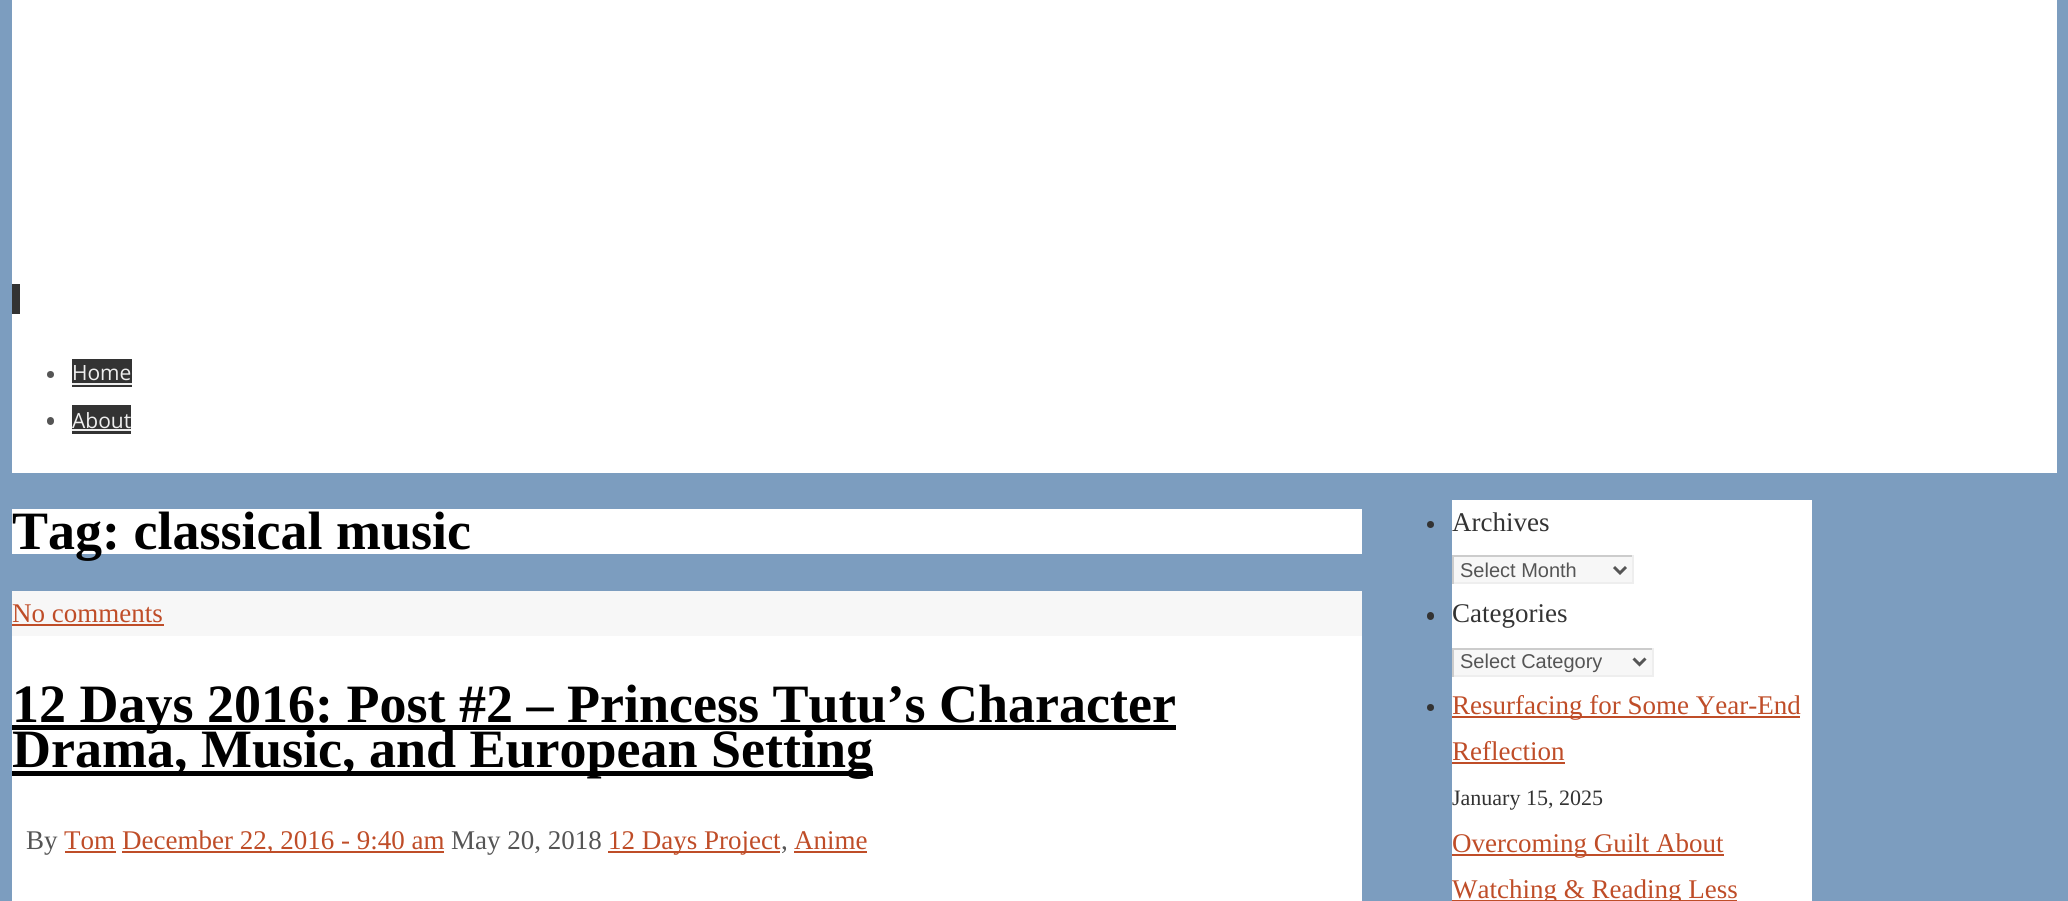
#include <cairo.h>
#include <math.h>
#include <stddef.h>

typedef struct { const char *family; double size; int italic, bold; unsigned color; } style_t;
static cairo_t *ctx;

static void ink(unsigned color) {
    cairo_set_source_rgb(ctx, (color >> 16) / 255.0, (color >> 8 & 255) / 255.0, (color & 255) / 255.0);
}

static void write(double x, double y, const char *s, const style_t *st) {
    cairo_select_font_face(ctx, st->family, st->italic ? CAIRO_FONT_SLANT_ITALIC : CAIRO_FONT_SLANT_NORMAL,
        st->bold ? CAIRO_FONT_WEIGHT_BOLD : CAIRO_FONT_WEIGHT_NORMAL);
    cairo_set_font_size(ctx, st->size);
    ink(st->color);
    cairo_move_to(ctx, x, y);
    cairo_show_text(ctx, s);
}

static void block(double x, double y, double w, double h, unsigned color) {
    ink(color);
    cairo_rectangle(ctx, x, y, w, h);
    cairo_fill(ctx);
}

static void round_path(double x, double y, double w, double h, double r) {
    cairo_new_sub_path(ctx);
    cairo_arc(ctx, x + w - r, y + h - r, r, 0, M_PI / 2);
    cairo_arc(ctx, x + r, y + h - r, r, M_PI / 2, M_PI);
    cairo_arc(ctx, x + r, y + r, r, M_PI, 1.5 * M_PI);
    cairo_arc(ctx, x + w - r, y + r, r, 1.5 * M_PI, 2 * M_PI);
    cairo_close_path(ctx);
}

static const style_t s1 = {"Open Sans", 21, 0, 0, 0xeeeeee};
static const style_t s2 = {"Liberation Serif", 54, 0, 1, 0x000000};
static const style_t s3 = {"Liberation Serif", 27, 0, 0, 0xbf4d28};
static const style_t s4 = {"Liberation Serif", 27, 0, 0, 0x555555};
static const style_t s5 = {"Liberation Serif", 27, 0, 0, 0x333333};
static const style_t s6 = {"Liberation Sans", 20, 0, 0, 0x555555};
static const style_t s7 = {"Liberation Serif", 22, 0, 0, 0x333333};

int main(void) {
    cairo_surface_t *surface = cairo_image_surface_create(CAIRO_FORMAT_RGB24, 2068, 901);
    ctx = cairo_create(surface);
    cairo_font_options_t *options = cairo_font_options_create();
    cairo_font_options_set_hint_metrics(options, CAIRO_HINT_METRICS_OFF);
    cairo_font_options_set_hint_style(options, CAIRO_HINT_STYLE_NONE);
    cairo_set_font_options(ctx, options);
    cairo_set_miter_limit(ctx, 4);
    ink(0x7c9dbf);
    cairo_paint(ctx);
    block(12, 0, 2045, 473, 0xffffff);
    block(12, 284, 8, 30, 0x333333);
    ink(0x555555);
    cairo_arc(ctx, 50.5, 374.5, 3.5, 0, 2 * M_PI);
    cairo_fill(ctx);
    block(72, 359, 60, 28, 0x333333);
    write(72, 380, "Home", &s1);
    block(72, 383, 60, 2, 0xeeeeee);
    ink(0x555555);
    round_path(47, 417, 7, 8, 3.5);
    cairo_fill(ctx);
    block(72, 405, 59, 29, 0x333333);
    write(72, 428, "About", &s1);
    block(72, 429, 59, 2, 0xeeeeee);
    block(12, 509, 1350, 45, 0xffffff);
    write(12, 549, "Tag: classical music", &s2);
    block(12, 636, 1350, 265, 0xffffff);
    block(12, 591, 1350, 45, 0xf7f7f7);
    write(12, 622, "No comments", &s3);
    block(12, 624, 152, 2, 0xbf4d28);
    block(12, 725, 1164, 5, 0x000000);
    write(12, 722, "12 Days 2016: Post #2 – Princess Tutu’s Character", &s2);
    block(12, 771, 861, 5, 0x000000);
    write(12, 767, "Drama, Music, and European Setting", &s2);
    write(26, 849, "By", &s4);
    write(64, 849, "Tom", &s3);
    block(65, 851, 51, 2, 0xbf4d28);
    block(122, 851, 322, 2, 0xbf4d28);
    write(122, 849, "December 22, 2016 - 9:40 am", &s3);
    write(451, 849, "May 20, 2018", &s4);
    block(608, 851, 172, 2, 0xbf4d28);
    write(608, 849, "12 Days Project", &s3);
    write(781, 849, ",", &s4);
    block(794, 851, 73, 2, 0xbf4d28);
    write(794, 849, "Anime", &s3);
    block(1452, 500, 360, 401, 0xffffff);
    ink(0x333333);
    cairo_new_path(ctx);
    cairo_arc(ctx, 1430.5, 524.5, 3.5, 0, 2 * M_PI);
    cairo_fill(ctx);
    write(1452, 531, "Archives", &s5);
    block(1454, 557, 178, 25, 0xf7f7f7);
    block(1452, 555, 182, 2, 0xcccccc);
    block(1632, 555, 2, 29, 0xeeeeee);
    block(1452, 582, 182, 2, 0xeeeeee);
    block(1452, 555, 2, 29, 0xcccccc);
    cairo_new_path(ctx);
    cairo_move_to(ctx, 1614, 567);
    cairo_line_to(ctx, 1620, 573);
    cairo_line_to(ctx, 1626, 567);
    ink(0x555555);
    cairo_set_line_width(ctx, 3);
    cairo_stroke(ctx);
    write(1460, 577, "Select Month", &s6);
    ink(0x333333);
    round_path(1427, 612, 7, 8, 3.5);
    cairo_fill(ctx);
    write(1452, 622, "Categories", &s5);
    block(1454, 650, 198, 25, 0xf7f7f7);
    block(1452, 648, 201, 2, 0xcccccc);
    block(1652, 648, 2, 29, 0xeeeeee);
    block(1452, 675, 201, 2, 0xeeeeee);
    block(1452, 648, 2, 29, 0xcccccc);
    cairo_new_path(ctx);
    cairo_move_to(ctx, 1633.5, 658.5);
    cairo_line_to(ctx, 1639.5, 664.5);
    cairo_line_to(ctx, 1645.5, 658.5);
    ink(0x555555);
    cairo_stroke(ctx);
    write(1460, 668, "Select Category", &s6);
    ink(0x333333);
    cairo_new_path(ctx);
    cairo_arc(ctx, 1430.5, 707.5, 3.5, 0, 2 * M_PI);
    cairo_fill(ctx);
    block(1452, 716, 348, 2, 0xbf4d28);
    write(1452, 714, "Resurfacing for Some Year-End", &s3);
    write(1452, 760, "Reflection", &s3);
    block(1452, 762, 113, 2, 0xbf4d28);
    write(1452, 805, "January 15, 2025", &s7);
    block(1452, 854, 272, 2, 0xbf4d28);
    write(1452, 852, "Overcoming Guilt About", &s3);
    block(1452, 900, 285, 1, 0xbf4d28);
    write(1452, 898, "Watching & Reading Less", &s3);
    cairo_surface_write_to_png(surface, "screenshot.png");
    cairo_font_options_destroy(options);
    cairo_destroy(ctx);
    cairo_surface_destroy(surface);
    return 0;
}
